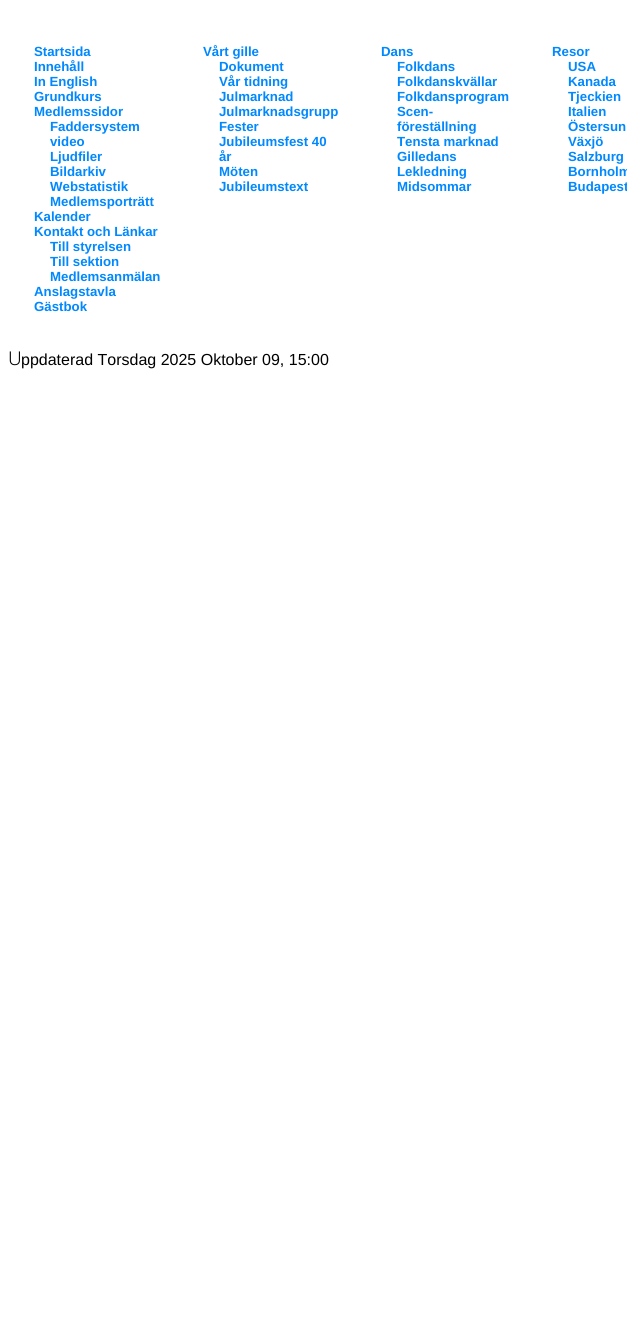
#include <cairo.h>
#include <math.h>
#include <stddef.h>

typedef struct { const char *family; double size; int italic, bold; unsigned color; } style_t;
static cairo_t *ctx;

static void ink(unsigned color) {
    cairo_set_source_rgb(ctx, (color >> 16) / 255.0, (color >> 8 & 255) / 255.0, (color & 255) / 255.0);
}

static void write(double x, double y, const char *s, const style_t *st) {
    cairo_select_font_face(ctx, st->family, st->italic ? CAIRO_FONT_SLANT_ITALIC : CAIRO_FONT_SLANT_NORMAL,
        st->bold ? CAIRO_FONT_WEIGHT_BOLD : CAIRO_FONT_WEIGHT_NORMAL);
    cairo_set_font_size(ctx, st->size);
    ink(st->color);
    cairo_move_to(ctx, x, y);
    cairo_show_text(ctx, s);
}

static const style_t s1 = {"Liberation Sans", 13.25, 0, 1, 0x0088ff};
static const style_t s2 = {"Noto Sans Light", 19, 0, 0, 0x000000};
static const style_t s3 = {"Liberation Sans", 16, 0, 0, 0x000000};

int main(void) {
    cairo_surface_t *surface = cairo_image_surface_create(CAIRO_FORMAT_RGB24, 627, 1327);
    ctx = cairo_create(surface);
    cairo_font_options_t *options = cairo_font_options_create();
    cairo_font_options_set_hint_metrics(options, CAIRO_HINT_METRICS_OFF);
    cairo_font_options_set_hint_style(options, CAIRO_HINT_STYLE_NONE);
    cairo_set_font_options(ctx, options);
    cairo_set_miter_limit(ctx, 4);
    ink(0xffffff);
    cairo_paint(ctx);
    write(34, 56, "Startsida", &s1);
    write(34, 71, "Innehåll", &s1);
    write(34, 86, "In English", &s1);
    write(34, 101, "Grundkurs", &s1);
    write(34, 116, "Medlemssidor", &s1);
    write(50, 131, "Faddersystem", &s1);
    write(50, 146, "video", &s1);
    write(50, 161, "Ljudfiler", &s1);
    write(50, 176, "Bildarkiv", &s1);
    write(50, 191, "Webstatistik", &s1);
    write(50, 206, "Medlemsporträtt", &s1);
    write(34, 221, "Kalender", &s1);
    write(34, 236, "Kontakt och Länkar", &s1);
    write(50, 251, "Till styrelsen", &s1);
    write(50, 266, "Till sektion", &s1);
    write(50, 281, "Medlemsanmälan", &s1);
    write(34, 296, "Anslagstavla", &s1);
    write(34, 311, "Gästbok", &s1);
    write(203, 56, "Vårt gille", &s1);
    write(219, 71, "Dokument", &s1);
    write(219, 86, "Vår tidning", &s1);
    write(219, 101, "Julmarknad", &s1);
    write(219, 116, "Julmarknadsgrupp", &s1);
    write(219, 131, "Fester", &s1);
    write(219, 146, "Jubileumsfest 40", &s1);
    write(219, 161, "år", &s1);
    write(219, 176, "Möten", &s1);
    write(219, 191, "Jubileumstext", &s1);
    write(381, 56, "Dans", &s1);
    write(397, 71, "Folkdans", &s1);
    write(397, 86, "Folkdanskvällar", &s1);
    write(397, 101, "Folkdansprogram", &s1);
    write(397, 116, "Scen-", &s1);
    write(397, 131, "föreställning", &s1);
    write(397, 146, "Tensta marknad", &s1);
    write(397, 161, "Gilledans", &s1);
    write(397, 176, "Lekledning", &s1);
    write(397, 191, "Midsommar", &s1);
    write(552, 56, "Resor", &s1);
    write(568, 71, "USA", &s1);
    write(568, 86, "Kanada", &s1);
    write(568, 101, "Tjeckien", &s1);
    write(568, 116, "Italien", &s1);
    write(568, 131, "Östersun", &s1);
    write(568, 146, "Växjö", &s1);
    write(568, 161, "Salzburg", &s1);
    write(568, 176, "Bornholm", &s1);
    write(568, 191, "Budapest", &s1);
    write(8, 365, "U", &s2);
    write(21, 365, "ppdaterad Torsdag 2025 Oktober 09, 15:00", &s3);
    cairo_surface_write_to_png(surface, "screenshot.png");
    cairo_font_options_destroy(options);
    cairo_destroy(ctx);
    cairo_surface_destroy(surface);
    return 0;
}
